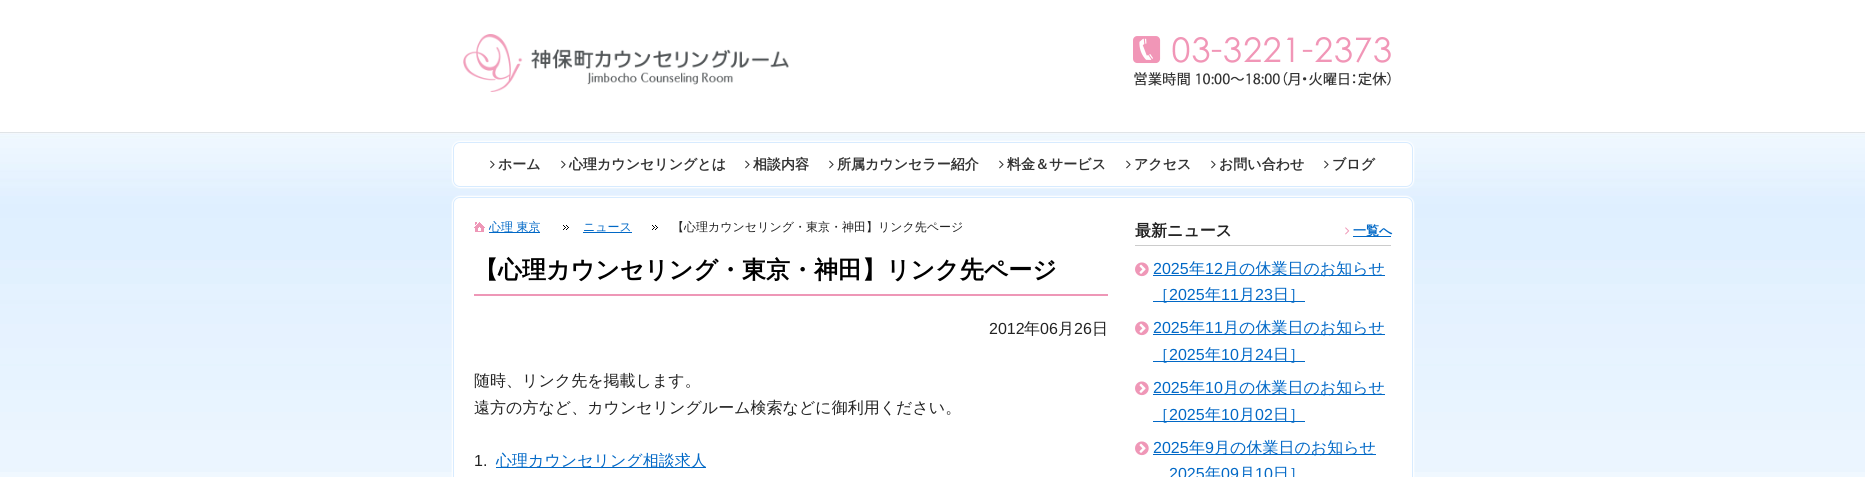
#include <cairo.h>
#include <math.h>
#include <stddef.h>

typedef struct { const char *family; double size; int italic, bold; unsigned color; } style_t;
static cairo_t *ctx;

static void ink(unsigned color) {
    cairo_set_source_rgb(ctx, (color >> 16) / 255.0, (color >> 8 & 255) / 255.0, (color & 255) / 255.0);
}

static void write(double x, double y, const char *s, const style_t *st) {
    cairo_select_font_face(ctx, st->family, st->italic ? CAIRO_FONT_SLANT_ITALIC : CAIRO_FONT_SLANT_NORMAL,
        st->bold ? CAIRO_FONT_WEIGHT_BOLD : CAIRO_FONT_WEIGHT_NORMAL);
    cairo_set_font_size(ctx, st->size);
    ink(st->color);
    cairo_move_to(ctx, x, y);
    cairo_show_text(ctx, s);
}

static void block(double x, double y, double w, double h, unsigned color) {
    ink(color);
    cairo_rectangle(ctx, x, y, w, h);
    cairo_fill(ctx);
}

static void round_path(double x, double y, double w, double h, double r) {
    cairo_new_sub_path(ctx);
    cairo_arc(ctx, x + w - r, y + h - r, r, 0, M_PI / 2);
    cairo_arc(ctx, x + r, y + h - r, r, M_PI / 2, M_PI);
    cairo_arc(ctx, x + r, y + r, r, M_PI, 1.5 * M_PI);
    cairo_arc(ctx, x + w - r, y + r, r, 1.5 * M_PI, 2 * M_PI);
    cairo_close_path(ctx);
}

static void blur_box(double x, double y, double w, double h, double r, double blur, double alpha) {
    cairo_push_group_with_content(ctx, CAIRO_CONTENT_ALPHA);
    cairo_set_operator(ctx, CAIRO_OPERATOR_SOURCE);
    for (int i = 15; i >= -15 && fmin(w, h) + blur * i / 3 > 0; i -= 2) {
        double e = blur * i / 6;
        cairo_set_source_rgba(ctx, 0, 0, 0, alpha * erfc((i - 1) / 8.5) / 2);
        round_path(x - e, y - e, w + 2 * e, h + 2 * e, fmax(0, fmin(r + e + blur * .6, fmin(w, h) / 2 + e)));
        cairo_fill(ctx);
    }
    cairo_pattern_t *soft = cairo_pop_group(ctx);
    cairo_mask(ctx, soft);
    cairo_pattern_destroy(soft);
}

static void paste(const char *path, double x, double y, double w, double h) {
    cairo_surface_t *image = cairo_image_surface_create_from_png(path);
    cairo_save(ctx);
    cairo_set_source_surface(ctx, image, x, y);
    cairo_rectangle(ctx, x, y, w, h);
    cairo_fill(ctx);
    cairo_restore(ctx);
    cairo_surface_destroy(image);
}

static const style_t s1 = {"WenQuanYi Zen Hei", 14, 0, 1, 0x333333};
static const style_t s2 = {"WenQuanYi Zen Hei Medium", 12, 0, 0, 0x0168c6};
static const style_t s3 = {"WenQuanYi Zen Hei Medium", 12, 0, 0, 0x222222};
static const style_t s4 = {"WenQuanYi Zen Hei", 24, 0, 1, 0x000000};
static const style_t s5 = {"Liberation Sans", 16, 0, 0, 0x222222};
static const style_t s6 = {"WenQuanYi Zen Hei Medium", 16, 0, 0, 0x222222};
static const style_t s7 = {"WenQuanYi Zen Hei Medium", 16, 0, 0, 0x0168c6};
static const style_t s8 = {"WenQuanYi Zen Hei", 16, 0, 1, 0x222222};
static const style_t s9 = {"WenQuanYi Zen Hei", 13, 0, 1, 0x0168c6};
static const style_t s10 = {"Liberation Sans", 16, 0, 0, 0x0168c6};

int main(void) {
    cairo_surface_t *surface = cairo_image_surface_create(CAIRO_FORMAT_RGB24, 1865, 477);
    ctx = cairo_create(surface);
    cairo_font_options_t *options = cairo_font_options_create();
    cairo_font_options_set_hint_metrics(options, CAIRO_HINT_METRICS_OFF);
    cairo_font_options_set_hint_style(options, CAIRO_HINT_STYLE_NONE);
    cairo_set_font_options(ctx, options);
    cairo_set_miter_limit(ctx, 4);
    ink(0xf0f8ff);
    cairo_paint(ctx);
    paste("pic1.png", 0, 132, 1865, 340);
    block(0, 0, 1865, 132, 0xffffff);
    paste("pic2.png", 463, 34, 326, 58);
    paste("pic3.png", 1133, 36, 258, 50);
    ink(0xffffff);
    blur_box(452, 141, 962, 47, 8, 0.5, 1);
    round_path(453.5, 142.5, 959, 44, 6.5);
    ink(0xd7ebff);
    cairo_set_line_width(ctx, 1);
    cairo_stroke(ctx);
    paste("pic4.png", 490, 160, 5, 9);
    write(498, 169, "ホーム", &s1);
    paste("pic4.png", 561, 160, 5, 9);
    write(569, 169, "心理カウンセリングとは", &s1);
    paste("pic4.png", 745, 160, 5, 9);
    write(753, 169, "相談内容", &s1);
    paste("pic4.png", 829, 160, 5, 9);
    write(837, 169, "所属カウンセラー紹介", &s1);
    paste("pic4.png", 999, 160, 5, 9);
    write(1007, 169, "料金＆サービス", &s1);
    paste("pic4.png", 1126, 160, 5, 9);
    write(1134, 169, "アクセス", &s1);
    paste("pic4.png", 1211, 160, 5, 9);
    write(1219, 169, "お問い合わせ", &s1);
    paste("pic4.png", 1324, 160, 5, 9);
    write(1332, 169, "ブログ", &s1);
    ink(0xffffff);
    blur_box(452, 196, 962, 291, 8, 0.5, 1);
    round_path(453.5, 197.5, 959, 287, 6.5);
    ink(0xd7ebff);
    cairo_stroke(ctx);
    paste("pic5.png", 474, 222, 11, 10);
    block(489, 232, 51, 1, 0x0168c6);
    write(489, 231, "心理 東京", &s2);
    paste("pic6.png", 563, 225, 6, 5);
    write(583, 231, "ニュース", &s2);
    block(583, 232, 49, 1, 0x0168c6);
    paste("pic6.png", 652, 225, 6, 5);
    write(672, 231, "【心理カウンセリング・東京・神田】リンク先ページ", &s3);
    block(474, 294, 634, 2, 0xee97b7);
    write(474, 278, "【心理カウンセリング・東京・神田】リンク先ページ", &s4);
    write(989, 334, "2012", &s5);
    write(1024, 334, "年", &s6);
    write(1040, 334, "06", &s5);
    write(1058, 334, "月", &s6);
    write(1074, 334, "26", &s5);
    write(1092, 334, "日", &s6);
    write(474, 386, "随時、リンク先を掲載します。", &s6);
    write(474, 413, "遠方の方など、カウンセリングルーム検索などに御利用ください。", &s6);
    write(474, 466, "1.", &s5);
    block(496, 467, 210, 1, 0x0168c6);
    write(496, 466, "心理カウンセリング相談求人", &s7);
    block(1135, 245, 256, 1, 0xcccccc);
    write(1135, 236, "最新ニュース", &s8);
    paste("pic7.png", 1345, 227, 5, 8);
    block(1353, 236, 38, 1, 0x0168c6);
    write(1353, 235, "一覧へ", &s9);
    paste("pic8.png", 1135, 262, 14, 15);
    write(1153, 274, "2025", &s10);
    block(1153, 275, 232, 1, 0x0168c6);
    write(1189, 274, "年", &s7);
    write(1205, 274, "12", &s10);
    write(1223, 274, "月の休業日のお知らせ", &s7);
    block(1153, 301, 152, 1, 0x0168c6);
    write(1153, 300, "［", &s7);
    write(1169, 300, "2025", &s10);
    write(1205, 300, "年", &s7);
    write(1221, 300, "11", &s10);
    write(1239, 300, "月", &s7);
    write(1255, 300, "23", &s10);
    write(1273, 300, "日］", &s7);
    paste("pic8.png", 1135, 321, 14, 15);
    write(1153, 333, "2025", &s10);
    block(1153, 334, 232, 1, 0x0168c6);
    write(1189, 333, "年", &s7);
    write(1205, 333, "11", &s10);
    write(1223, 333, "月の休業日のお知らせ", &s7);
    block(1153, 361, 152, 1, 0x0168c6);
    write(1153, 360, "［", &s7);
    write(1169, 360, "2025", &s10);
    write(1205, 360, "年", &s7);
    write(1221, 360, "10", &s10);
    write(1239, 360, "月", &s7);
    write(1255, 360, "24", &s10);
    write(1273, 360, "日］", &s7);
    paste("pic8.png", 1135, 381, 14, 15);
    write(1153, 393, "2025", &s10);
    block(1153, 394, 232, 1, 0x0168c6);
    write(1189, 393, "年", &s7);
    write(1205, 393, "10", &s10);
    write(1223, 393, "月の休業日のお知らせ", &s7);
    block(1153, 421, 152, 1, 0x0168c6);
    write(1153, 420, "［", &s7);
    write(1169, 420, "2025", &s10);
    write(1205, 420, "年", &s7);
    write(1221, 420, "10", &s10);
    write(1239, 420, "月", &s7);
    write(1255, 420, "02", &s10);
    write(1273, 420, "日］", &s7);
    paste("pic8.png", 1135, 441, 14, 15);
    write(1153, 453, "2025", &s10);
    block(1153, 454, 223, 1, 0x0168c6);
    write(1189, 453, "年", &s7);
    write(1205, 453, "9", &s10);
    write(1214, 453, "月の休業日のお知らせ", &s7);
    write(1169, 479, "2025", &s10);
    write(1205, 479, "年", &s7);
    write(1221, 479, "09", &s10);
    write(1239, 479, "月", &s7);
    write(1255, 479, "10", &s10);
    write(1273, 479, "日］", &s7);
    cairo_surface_write_to_png(surface, "screenshot.png");
    cairo_font_options_destroy(options);
    cairo_destroy(ctx);
    cairo_surface_destroy(surface);
    return 0;
}
